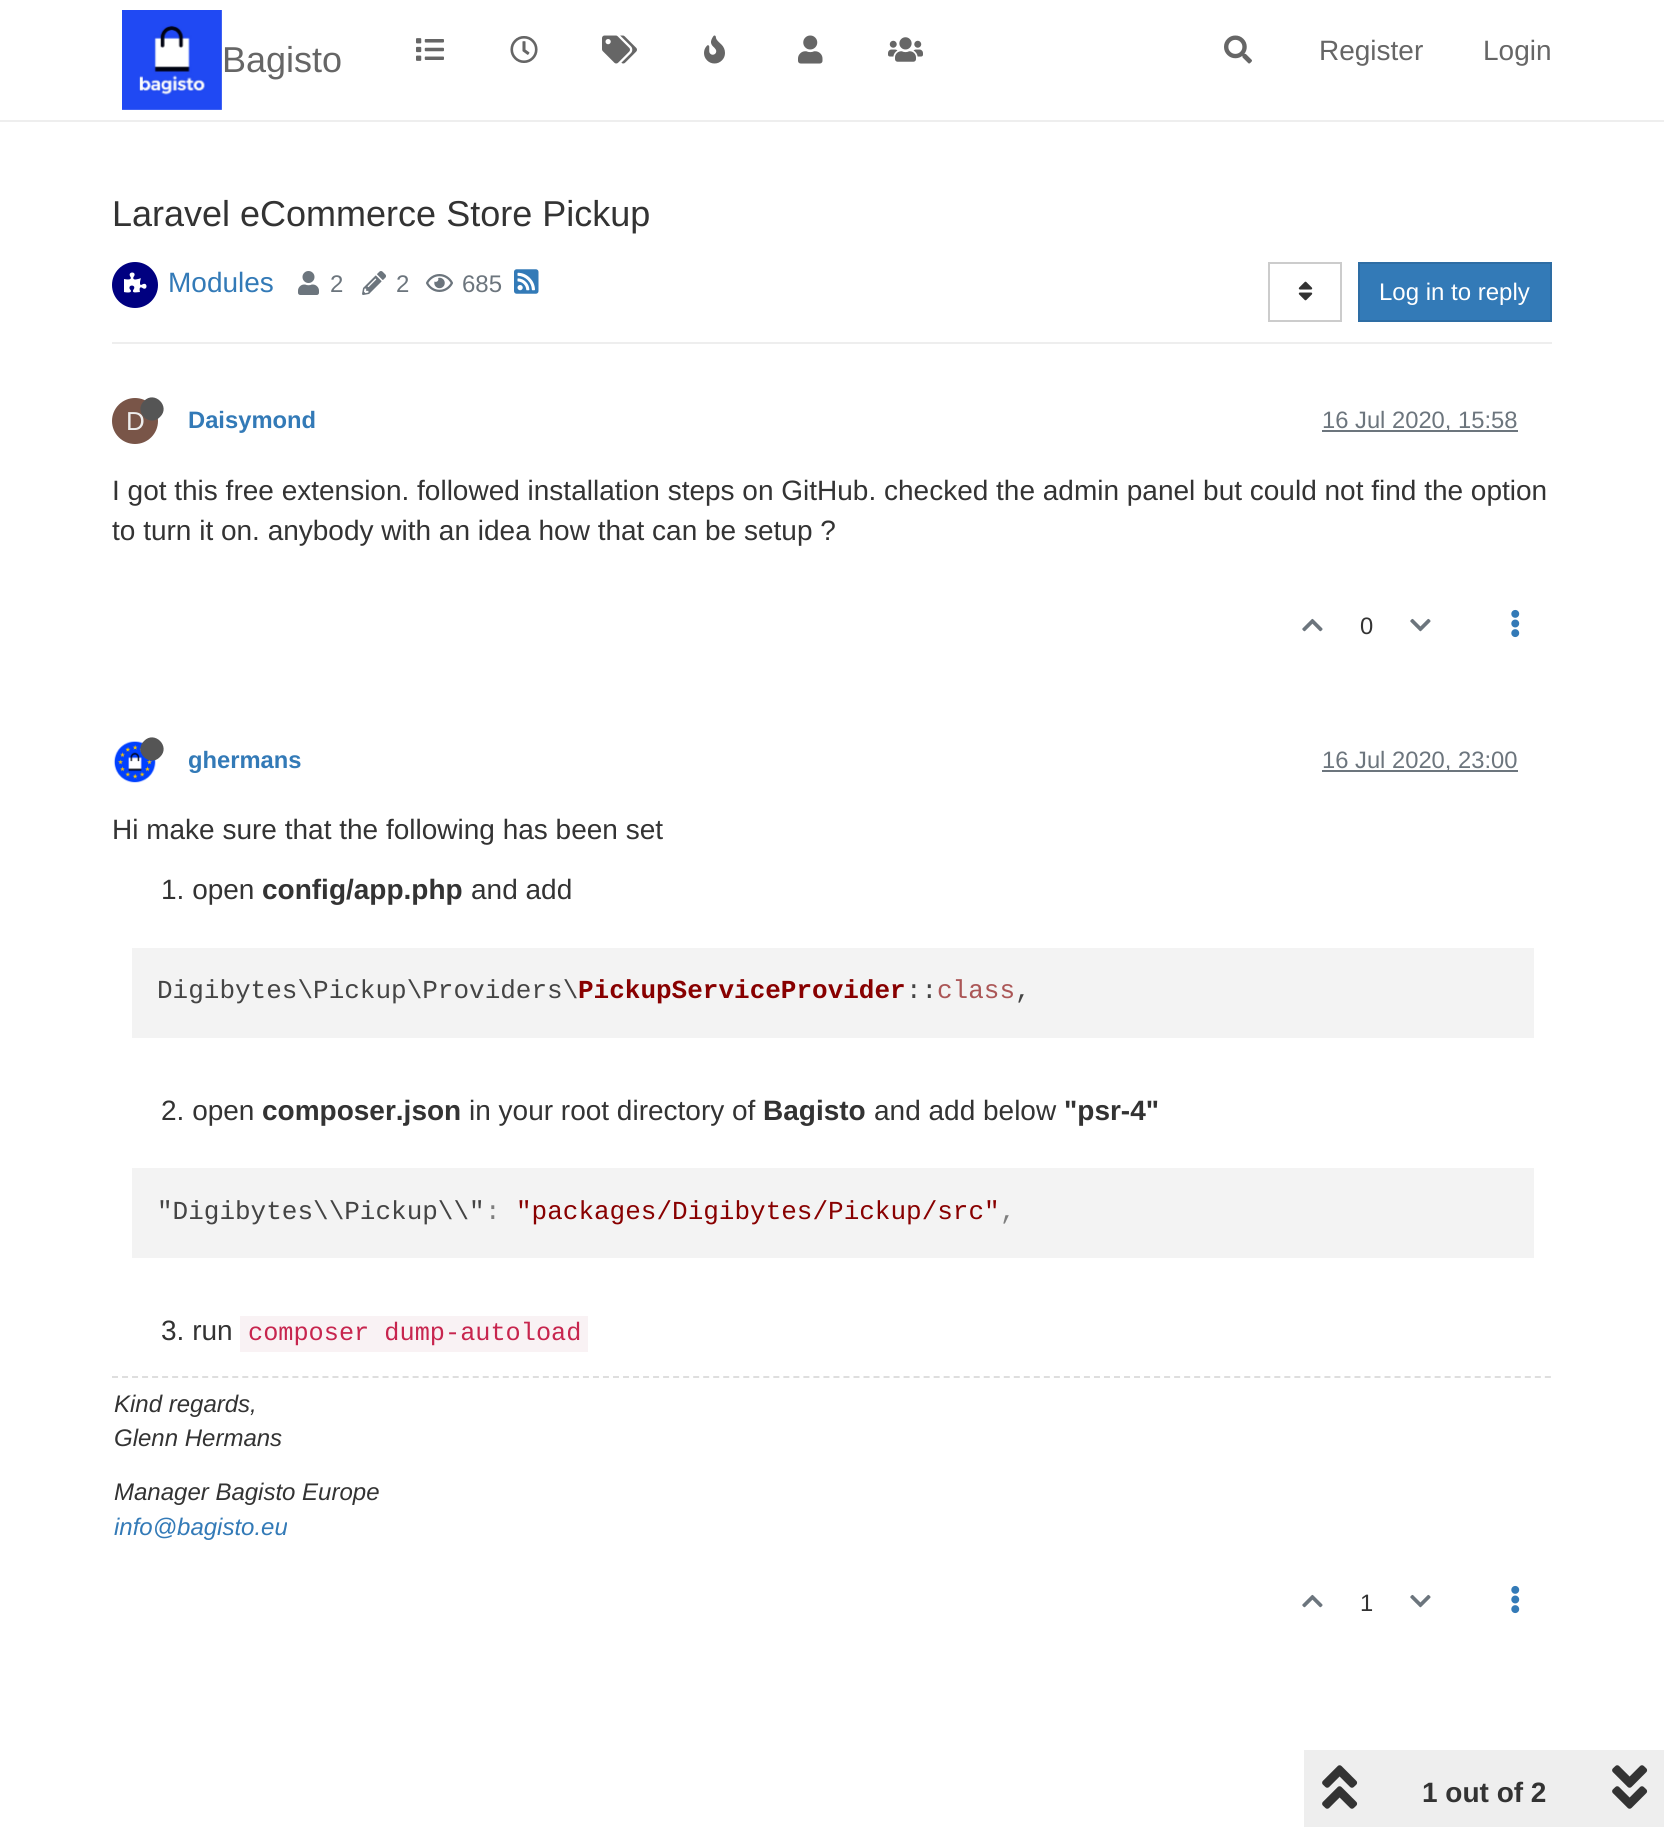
#include <cairo.h>
#include <math.h>
#include <stddef.h>

typedef struct { const char *family; double size; int italic, bold; unsigned color; } style_t;
static cairo_t *ctx;

static void ink(unsigned color) {
    cairo_set_source_rgb(ctx, (color >> 16) / 255.0, (color >> 8 & 255) / 255.0, (color & 255) / 255.0);
}

static void write(double x, double y, const char *s, const style_t *st) {
    cairo_select_font_face(ctx, st->family, st->italic ? CAIRO_FONT_SLANT_ITALIC : CAIRO_FONT_SLANT_NORMAL,
        st->bold ? CAIRO_FONT_WEIGHT_BOLD : CAIRO_FONT_WEIGHT_NORMAL);
    cairo_set_font_size(ctx, st->size);
    ink(st->color);
    cairo_move_to(ctx, x, y);
    cairo_show_text(ctx, s);
}

static void block(double x, double y, double w, double h, unsigned color) {
    ink(color);
    cairo_rectangle(ctx, x, y, w, h);
    cairo_fill(ctx);
}

static void paste(const char *path, double x, double y, double w, double h) {
    cairo_surface_t *image = cairo_image_surface_create_from_png(path);
    cairo_save(ctx);
    cairo_set_source_surface(ctx, image, x, y);
    cairo_rectangle(ctx, x, y, w, h);
    cairo_fill(ctx);
    cairo_restore(ctx);
    cairo_surface_destroy(image);
}

static const style_t s1 = {"Liberation Sans", 36, 0, 0, 0x666666};
static const style_t s2 = {"Liberation Sans", 28, 0, 0, 0x666666};
static const style_t s3 = {"Liberation Sans", 36, 0, 0, 0x333333};
static const style_t s4 = {"Liberation Sans", 28, 0, 0, 0x337ab7};
static const style_t s5 = {"Liberation Sans", 24, 0, 0, 0x6c757d};
static const style_t s6 = {"Liberation Sans", 24, 0, 0, 0xffffff};
static const style_t s7 = {"Liberation Sans", 26, 0, 0, 0xeeeeee};
static const style_t s8 = {"Liberation Sans", 23.75, 0, 1, 0x337ab7};
static const style_t s9 = {"Liberation Sans", 23.75, 0, 0, 0x6c757d};
static const style_t s10 = {"Liberation Sans", 28, 0, 0, 0x333333};
static const style_t s11 = {"Liberation Sans", 23.75, 0, 0, 0x333333};
static const style_t s12 = {"Liberation Sans", 28, 0, 1, 0x333333};
static const style_t s13 = {"Liberation Mono", 26, 0, 0, 0x444444};
static const style_t s14 = {"Liberation Mono", 26, 0, 1, 0x880000};
static const style_t s15 = {"Liberation Mono", 26, 0, 0, 0xab5656};
static const style_t s16 = {"Liberation Mono", 26, 0, 0, 0x7e7e7e};
static const style_t s17 = {"Liberation Mono", 26, 0, 0, 0x880000};
static const style_t s18 = {"Liberation Mono", 25.25, 0, 0, 0xc7254e};
static const style_t s19 = {"Liberation Sans", 24, 1, 0, 0x333333};
static const style_t s20 = {"Liberation Sans", 24, 1, 0, 0x337ab7};

int main(void) {
    cairo_surface_t *surface = cairo_image_surface_create(CAIRO_FORMAT_RGB24, 1664, 1827);
    ctx = cairo_create(surface);
    cairo_font_options_t *options = cairo_font_options_create();
    cairo_font_options_set_hint_metrics(options, CAIRO_HINT_METRICS_OFF);
    cairo_font_options_set_hint_style(options, CAIRO_HINT_STYLE_NONE);
    cairo_set_font_options(ctx, options);
    cairo_set_miter_limit(ctx, 4);
    ink(0xffffff);
    cairo_paint(ctx);
    block(0, 120, 1664, 2, 0xeeeeee);
    paste("pic1.png", 122, 10, 100, 100);
    write(222, 72, "Bagisto", &s1);
    paste("pic2.png", 416, 38, 28, 23);
    paste("pic3.png", 510, 36, 28, 27);
    paste("pic4.png", 602, 35, 35, 29);
    paste("pic5.png", 704, 35, 21, 29);
    paste("pic6.png", 798, 35, 25, 29);
    paste("pic7.png", 888, 37, 35, 25);
    paste("pic8.png", 1224, 35, 28, 29);
    write(1319, 60, "Register", &s2);
    write(1483, 60, "Login", &s2);
    write(112, 226, "Laravel eCommerce Store Pickup", &s3);
    block(112, 342, 1440, 2, 0xeeeeee);
    ink(0x000080);
    cairo_new_path(ctx);
    cairo_arc(ctx, 135, 285, 23, 0, 2 * M_PI);
    cairo_fill(ctx);
    paste("pic9.png", 124, 272, 23, 21);
    write(168, 292, "Modules", &s4);
    paste("pic10.png", 298, 271, 21, 24);
    write(330, 292, "2", &s5);
    paste("pic11.png", 362, 271, 24, 24);
    write(396, 292, "2", &s5);
    paste("pic12.png", 426, 274, 27, 18);
    write(462, 292, "685", &s5);
    paste("pic13.png", 514, 269, 25, 25);
    cairo_rectangle(ctx, 1269, 263, 72, 58);
    ink(0xcccccc);
    cairo_stroke(ctx);
    paste("pic14.png", 1298, 281, 15, 20);
    ink(0x337ab7);
    cairo_rectangle(ctx, 1359, 263, 192, 58);
    cairo_fill_preserve(ctx);
    ink(0x2e6da4);
    cairo_stroke(ctx);
    write(1379, 300, "Log in to reply", &s6);
    ink(0x795548);
    cairo_new_path(ctx);
    cairo_arc(ctx, 135, 421, 23, 0, 2 * M_PI);
    cairo_fill(ctx);
    write(126, 430, "D", &s7);
    ink(0x555555);
    cairo_new_path(ctx);
    cairo_move_to(ctx, 144, 401);
    cairo_curve_to(ctx, 154.5, 390, 171, 406.5, 160, 417);
    cairo_curve_to(ctx, 149.5, 428, 133, 411.5, 144, 401);
    cairo_close_path(ctx);
    cairo_fill(ctx);
    write(188, 428, "Daisymond", &s8);
    block(1322, 430, 196, 2, 0x6c757d);
    write(1322, 428, "16 Jul 2020, 15:58", &s9);
    write(112, 500, "I got this free extension. followed installation steps on GitHub. checked the admin panel but could not find the option", &s10);
    write(112, 540, "to turn it on. anybody with an idea how that can be setup ?", &s10);
    paste("pic15.png", 1302, 618, 21, 14);
    write(1360, 634, "0", &s11);
    paste("pic16.png", 1410, 618, 21, 14);
    paste("pic17.png", 1511, 609, 9, 29);
    paste("pic18.png", 113, 741, 43, 42);
    ink(0x555555);
    cairo_new_path(ctx);
    cairo_move_to(ctx, 144, 741);
    cairo_curve_to(ctx, 154.5, 730, 171, 746.5, 160, 757);
    cairo_curve_to(ctx, 149.5, 768, 133, 751.5, 144, 741);
    cairo_close_path(ctx);
    cairo_fill(ctx);
    write(188, 768, "ghermans", &s8);
    block(1322, 770, 196, 2, 0x6c757d);
    write(1322, 768, "16 Jul 2020, 23:00", &s9);
    write(112, 839, "Hi make sure that the following has been set", &s10);
    write(161, 899, "1. open", &s10);
    write(262, 899, "config/app.php", &s12);
    write(471, 899, "and add", &s10);
    block(132, 948, 1402, 90, 0xf3f3f3);
    write(157, 998, "Digibytes\\Pickup\\Providers\\", &s13);
    write(578, 998, "PickupServiceProvider", &s14);
    write(906, 998, "::", &s13);
    write(937, 998, "class", &s15);
    write(1015, 998, ",", &s13);
    write(161, 1120, "2. open", &s10);
    write(262, 1120, "composer.json", &s12);
    write(469, 1120, "in your root directory of", &s10);
    write(763, 1120, "Bagisto", &s12);
    write(874, 1120, "and add below", &s10);
    write(1064, 1120, "\"psr-4\"", &s12);
    block(132, 1168, 1402, 90, 0xf3f3f3);
    write(157, 1219, "\"Digibytes\\\\Pickup\\\\\"", &s13);
    write(485, 1219, ":", &s16);
    write(516, 1219, "\"packages/Digibytes/Pickup/src\"", &s17);
    write(1000, 1219, ",", &s16);
    write(161, 1340, "3. run", &s10);
    block(240, 1316, 348, 36, 0xf9f2f4);
    write(248, 1340, "composer dump-autoload", &s18);
    cairo_new_path(ctx);
    cairo_move_to(ctx, 112, 1377);
    cairo_line_to(ctx, 1552, 1377);
    ink(0xdedede);
    cairo_set_dash(ctx, (double[]){6, 4.02}, 2, 0);
    cairo_stroke(ctx);
    write(114, 1412, "Kind regards,", &s19);
    write(114, 1446, "Glenn Hermans", &s19);
    write(114, 1500, "Manager Bagisto Europe", &s19);
    write(114, 1535, "info@bagisto.eu", &s20);
    paste("pic15.png", 1302, 1594, 21, 14);
    write(1360, 1611, "1", &s11);
    paste("pic16.png", 1410, 1594, 21, 14);
    paste("pic17.png", 1511, 1585, 9, 29);
    block(1304, 1750, 360, 77, 0xeeeeee);
    paste("pic19.png", 1322, 1765, 36, 44);
    write(1422, 1802, "1 out of 2", &s12);
    paste("pic20.png", 1612, 1765, 36, 44);
    cairo_surface_write_to_png(surface, "screenshot.png");
    cairo_font_options_destroy(options);
    cairo_destroy(ctx);
    cairo_surface_destroy(surface);
    return 0;
}
